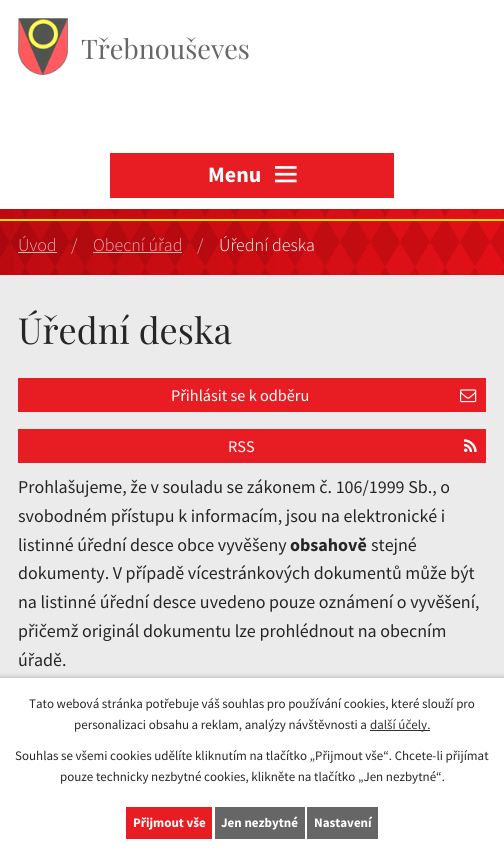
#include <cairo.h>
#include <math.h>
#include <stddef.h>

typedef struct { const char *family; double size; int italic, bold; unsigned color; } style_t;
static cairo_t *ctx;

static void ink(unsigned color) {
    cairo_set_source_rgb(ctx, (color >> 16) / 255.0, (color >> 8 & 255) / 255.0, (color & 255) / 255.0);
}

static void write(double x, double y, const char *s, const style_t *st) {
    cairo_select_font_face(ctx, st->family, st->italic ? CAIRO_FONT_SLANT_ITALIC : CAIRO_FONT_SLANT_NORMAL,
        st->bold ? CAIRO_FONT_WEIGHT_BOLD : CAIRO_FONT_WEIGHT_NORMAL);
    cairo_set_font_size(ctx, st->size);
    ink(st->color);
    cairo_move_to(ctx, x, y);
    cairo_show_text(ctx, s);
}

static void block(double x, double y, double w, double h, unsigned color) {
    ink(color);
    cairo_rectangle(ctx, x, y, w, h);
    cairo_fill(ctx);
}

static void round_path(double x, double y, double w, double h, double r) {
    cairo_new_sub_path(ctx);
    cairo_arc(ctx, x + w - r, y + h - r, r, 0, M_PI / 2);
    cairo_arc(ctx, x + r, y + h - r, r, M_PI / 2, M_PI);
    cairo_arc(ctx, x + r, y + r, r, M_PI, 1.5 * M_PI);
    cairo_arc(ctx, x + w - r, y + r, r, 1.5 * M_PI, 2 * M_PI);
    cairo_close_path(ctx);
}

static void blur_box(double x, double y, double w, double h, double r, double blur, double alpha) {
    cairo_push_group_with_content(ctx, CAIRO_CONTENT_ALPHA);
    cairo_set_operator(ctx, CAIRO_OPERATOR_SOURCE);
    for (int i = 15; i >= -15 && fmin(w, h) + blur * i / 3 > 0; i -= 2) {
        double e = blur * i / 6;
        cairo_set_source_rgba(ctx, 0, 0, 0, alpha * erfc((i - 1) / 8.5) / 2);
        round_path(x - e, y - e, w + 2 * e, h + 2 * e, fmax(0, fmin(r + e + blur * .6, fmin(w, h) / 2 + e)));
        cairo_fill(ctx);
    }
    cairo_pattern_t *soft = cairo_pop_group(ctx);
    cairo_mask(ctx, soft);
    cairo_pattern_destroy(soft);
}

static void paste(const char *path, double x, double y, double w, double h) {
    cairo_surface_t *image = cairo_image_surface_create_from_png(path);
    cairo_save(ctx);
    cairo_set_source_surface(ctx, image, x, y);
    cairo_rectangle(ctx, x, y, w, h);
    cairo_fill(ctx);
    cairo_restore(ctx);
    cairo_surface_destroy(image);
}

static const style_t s1 = {"Playfair Display", 27, 0, 0, 0x676767};
static const style_t s2 = {"Source Sans Pro", 22, 0, 1, 0xffffff};
static const style_t s3 = {"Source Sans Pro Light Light", 18, 0, 0, 0xdeb2b4};
static const style_t s4 = {"Source Sans Pro Light Light", 18, 0, 0, 0xffffff};
static const style_t s5 = {"Playfair Display", 36, 0, 0, 0x262626};
static const style_t s6 = {"Source Sans Pro", 16.25, 0, 0, 0xffffff};
static const style_t s7 = {"Source Sans Pro", 18, 0, 0, 0x262626};
static const style_t s8 = {"Source Sans Pro", 18, 0, 1, 0x262626};
static const style_t s9 = {"Source Sans Pro", 13, 0, 0, 0x262626};
static const style_t s10 = {"Source Sans Pro", 13, 0, 0, 0x333333};
static const style_t s11 = {"Source Sans Pro", 13, 0, 1, 0xffffff};

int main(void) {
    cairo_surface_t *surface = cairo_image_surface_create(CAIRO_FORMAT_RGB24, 504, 854);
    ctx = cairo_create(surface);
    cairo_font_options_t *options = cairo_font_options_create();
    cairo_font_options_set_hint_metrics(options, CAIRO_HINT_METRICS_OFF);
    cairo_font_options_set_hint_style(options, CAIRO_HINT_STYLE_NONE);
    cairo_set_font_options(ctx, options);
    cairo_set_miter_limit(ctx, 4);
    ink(0xebebeb);
    cairo_paint(ctx);
    block(0, 0, 504, 209, 0xffffff);
    paste("pic1.png", 18, 18, 50, 57);
    write(81, 59, "Třebnouševes", &s1);
    block(110, 153, 284, 45, 0xe81d23);
    write(208, 182, "Menu", &s2);
    paste("pic2.png", 275, 166, 22, 17);
    paste("pic3.png", 0, 209, 504, 66);
    block(0, 219, 504, 2, 0xffde00);
    write(18, 251, "Úvod", &s3);
    block(18, 252, 39, 1, 0xdeb2b4);
    write(71, 251, "/", &s3);
    write(93, 251, "Obecní úřad", &s3);
    block(93, 252, 89, 1, 0xdeb2b4);
    write(197, 251, "/", &s3);
    write(219, 251, "Úřední deska", &s4);
    write(18, 344, "Úřední deska", &s5);
    block(18, 378, 468, 34, 0xe81d23);
    write(171, 401, "Přihlásit se k odběru", &s6);
    paste("pic4.png", 460, 389, 17, 14);
    block(18, 429, 468, 34, 0xe81d23);
    write(228, 452, "RSS", &s6);
    paste("pic5.png", 464, 439, 13, 13);
    write(18, 493, "Prohlašujeme, že v souladu se zákonem č. 106/1999 Sb., o", &s7);
    write(18, 522, "svobodném přístupu k informacím, jsou na elektronické i", &s7);
    write(18, 551, "listinné úřední desce obce vyvěšeny", &s7);
    write(290, 551, "obsahově", &s8);
    write(371, 551, "stejné", &s7);
    write(18, 579, "dokumenty. V případě vícestránkových dokumentů může být", &s7);
    write(18, 608, "na listinné úřední desce uvedeno pouze oznámení o vyvěšení,", &s7);
    write(18, 637, "přičemž originál dokumentu lze prohlédnout na obecním", &s7);
    write(18, 666, "úřadě.", &s7);
    ink(0x000000);
    blur_box(0, 677, 504, 177, 0, 2.5, 0.2);
    block(0, 678, 504, 176, 0xffffff);
    block(0, 677, 504, 1, 0xcccccc);
    write(29, 708, "Tato webová stránka potřebuje váš souhlas pro používání cookies, které slouží pro", &s9);
    write(74, 729, "personalizaci obsahu a reklam, analýzy návštěvnosti a", &s9);
    block(370, 730, 60, 1, 0x333333);
    write(370, 729, "další účely.", &s10);
    write(15, 760, "Souhlas se všemi cookies udělíte kliknutím na tlačítko „Přijmout vše“. Chcete-li přijímat", &s9);
    write(60, 781, "pouze technicky nezbytné cookies, klikněte na tlačítko „Jen nezbytné“.", &s9);
    block(126, 807, 86, 32, 0xe81d23);
    write(133, 827, "Přijmout vše", &s11);
    block(215, 807, 90, 32, 0x666666);
    write(221, 827, "Jen nezbytné", &s11);
    block(307, 807, 71, 32, 0x666666);
    write(314, 827, "Nastavení", &s11);
    cairo_surface_write_to_png(surface, "screenshot.png");
    cairo_font_options_destroy(options);
    cairo_destroy(ctx);
    cairo_surface_destroy(surface);
    return 0;
}
